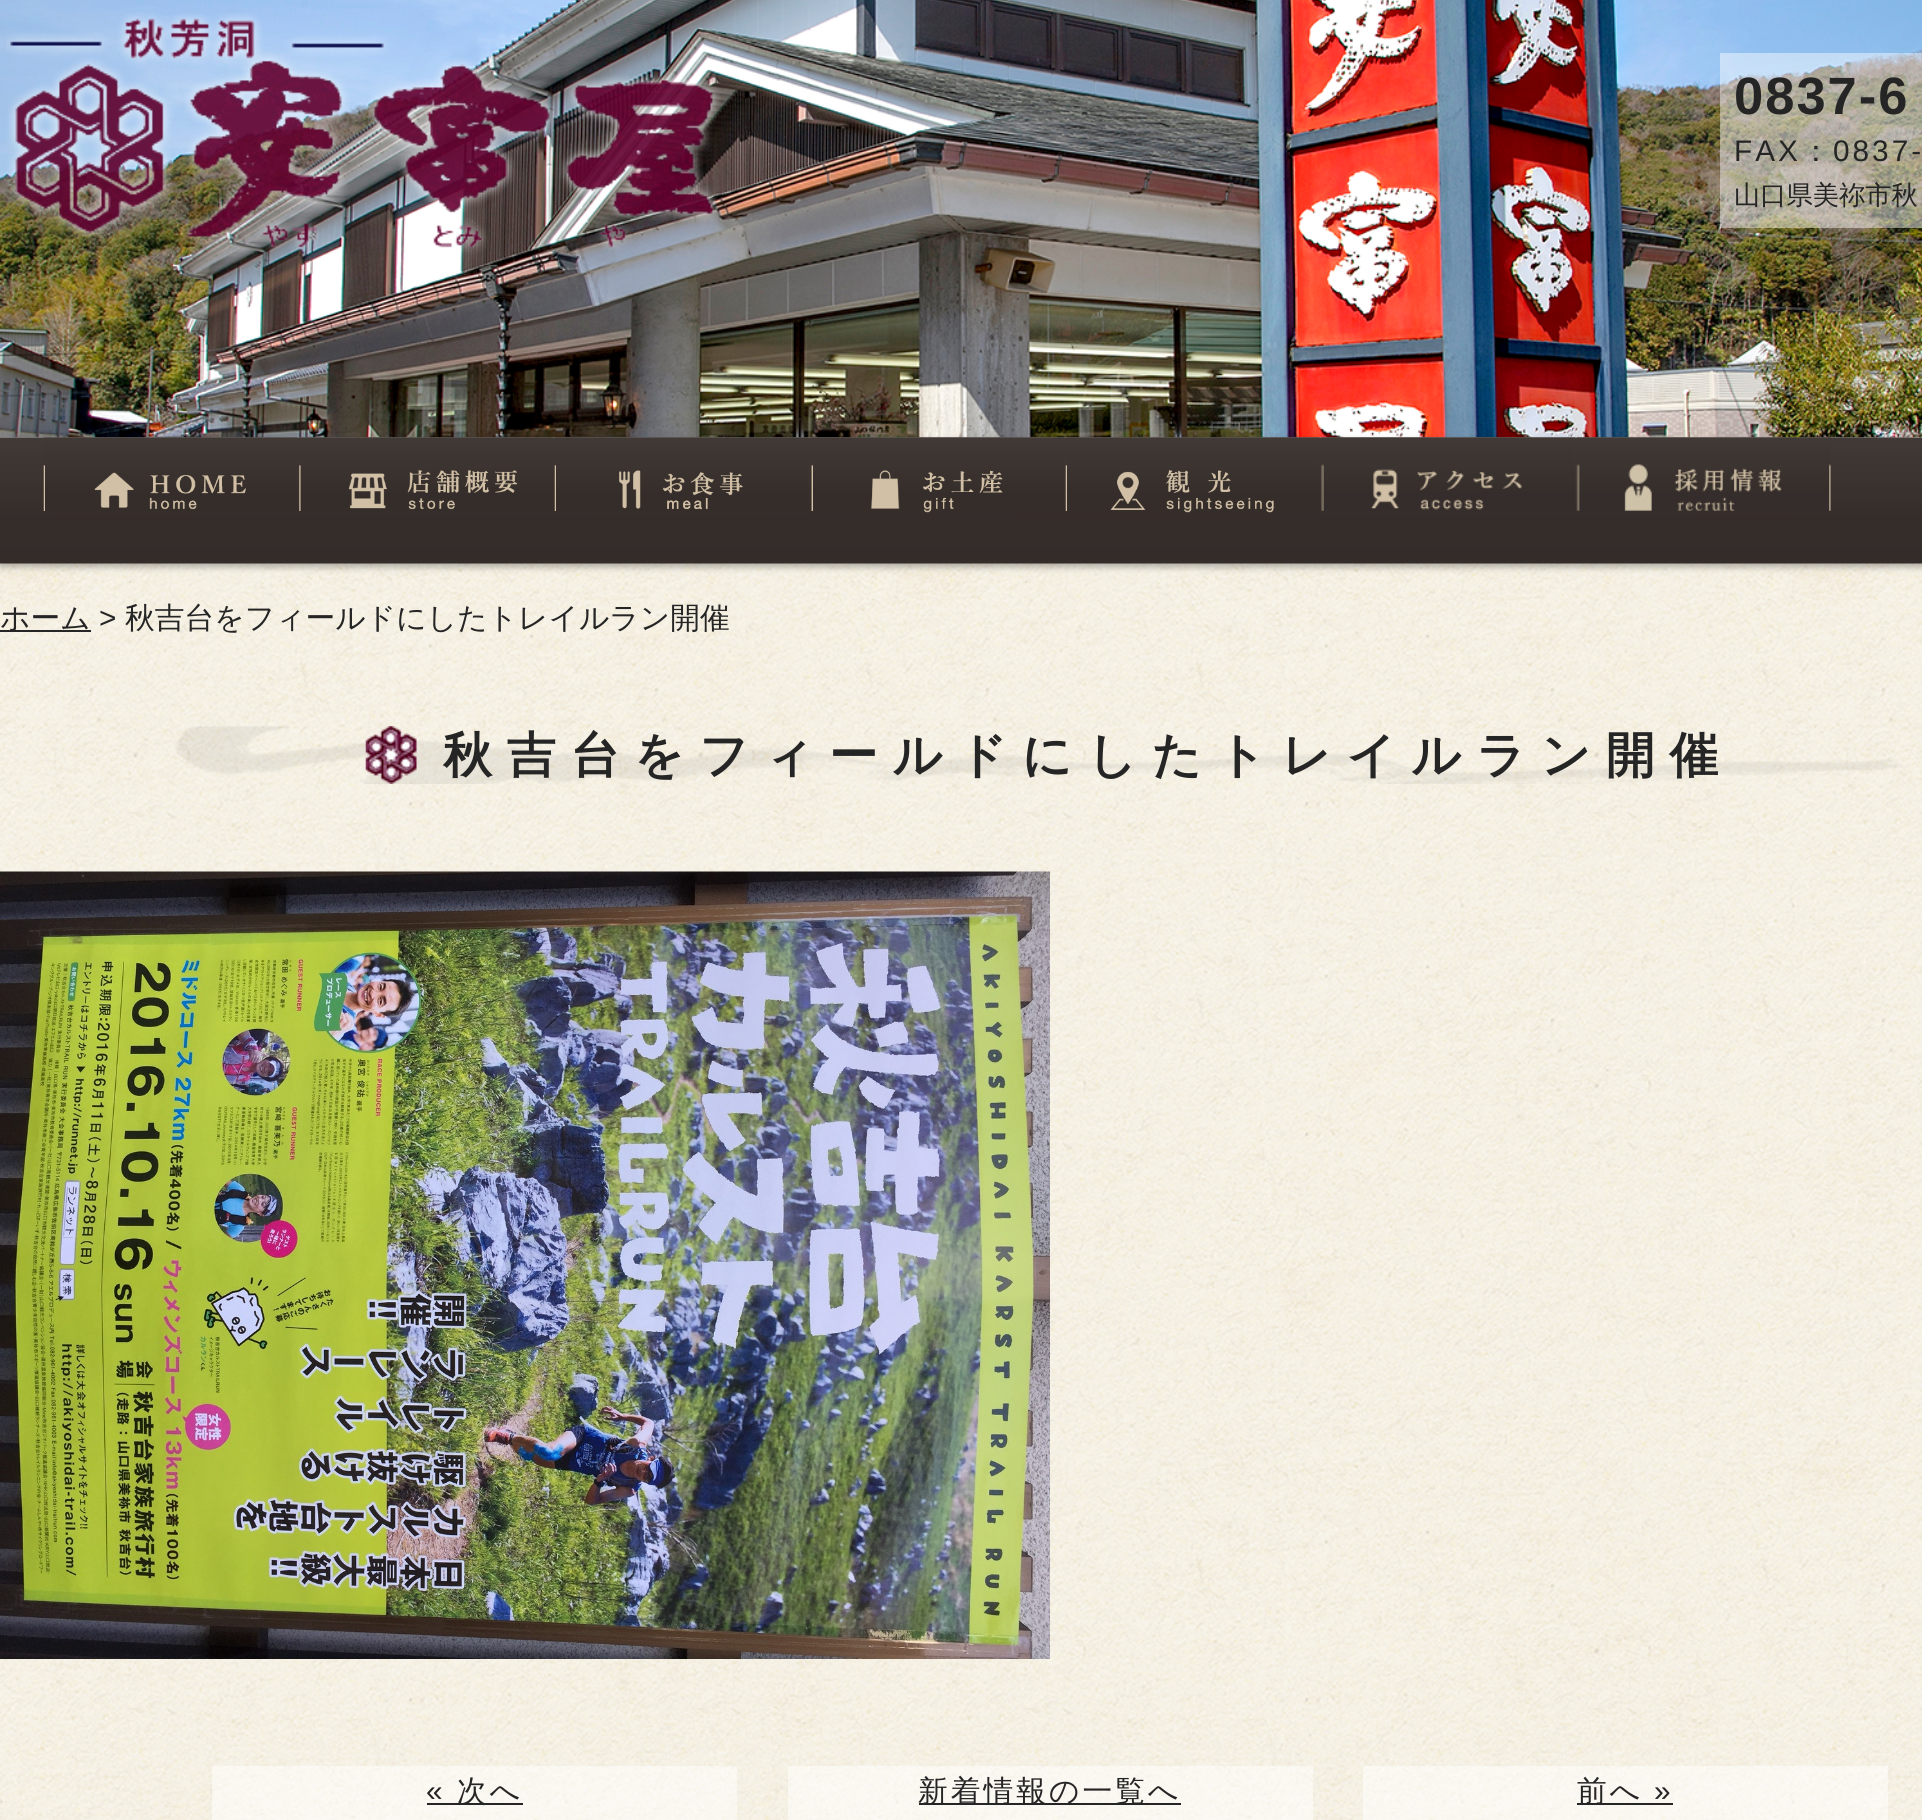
#include <cairo.h>
#include <math.h>
#include <stddef.h>

typedef struct { const char *family; double size; int italic, bold; unsigned color; } style_t;
static cairo_t *ctx;

static void ink(unsigned color) {
    cairo_set_source_rgb(ctx, (color >> 16) / 255.0, (color >> 8 & 255) / 255.0, (color & 255) / 255.0);
}

static void write(double x, double y, const char *s, const style_t *st) {
    cairo_select_font_face(ctx, st->family, st->italic ? CAIRO_FONT_SLANT_ITALIC : CAIRO_FONT_SLANT_NORMAL,
        st->bold ? CAIRO_FONT_WEIGHT_BOLD : CAIRO_FONT_WEIGHT_NORMAL);
    cairo_set_font_size(ctx, st->size);
    ink(st->color);
    cairo_move_to(ctx, x, y);
    cairo_show_text(ctx, s);
}

static void write_spaced(double x, double y, const char *s, double letter, double word) {
    cairo_move_to(ctx, x, y);
    while (*s) {
        char ch[5] = {0};
        int n = 0;
        do ch[n++] = *s++; while ((*s & 0xC0) == 0x80);
        cairo_show_text(ctx, ch);
        cairo_rel_move_to(ctx, letter + word * (*ch == ' '), 0);
    }
}

static void block(double x, double y, double w, double h, unsigned color) {
    ink(color);
    cairo_rectangle(ctx, x, y, w, h);
    cairo_fill(ctx);
}

static void round_path(double x, double y, double w, double h, double r) {
    cairo_new_sub_path(ctx);
    cairo_arc(ctx, x + w - r, y + h - r, r, 0, M_PI / 2);
    cairo_arc(ctx, x + r, y + h - r, r, M_PI / 2, M_PI);
    cairo_arc(ctx, x + r, y + r, r, M_PI, 1.5 * M_PI);
    cairo_arc(ctx, x + w - r, y + r, r, 1.5 * M_PI, 2 * M_PI);
    cairo_close_path(ctx);
}

static void blur_box(double x, double y, double w, double h, double r, double blur, double alpha) {
    cairo_push_group_with_content(ctx, CAIRO_CONTENT_ALPHA);
    cairo_set_operator(ctx, CAIRO_OPERATOR_SOURCE);
    for (int i = 15; i >= -15 && fmin(w, h) + blur * i / 3 > 0; i -= 2) {
        double e = blur * i / 6;
        cairo_set_source_rgba(ctx, 0, 0, 0, alpha * erfc((i - 1) / 8.5) / 2);
        round_path(x - e, y - e, w + 2 * e, h + 2 * e, fmax(0, fmin(r + e + blur * .6, fmin(w, h) / 2 + e)));
        cairo_fill(ctx);
    }
    cairo_pattern_t *soft = cairo_pop_group(ctx);
    cairo_mask(ctx, soft);
    cairo_pattern_destroy(soft);
}

static void paste(const char *path, double x, double y, double w, double h) {
    cairo_surface_t *image = cairo_image_surface_create_from_png(path);
    cairo_save(ctx);
    cairo_set_source_surface(ctx, image, x, y);
    cairo_rectangle(ctx, x, y, w, h);
    cairo_fill(ctx);
    cairo_restore(ctx);
    cairo_surface_destroy(image);
}

static const style_t s1 = {"WenQuanYi Zen Hei Medium", 26.25, 0, 0, 0x252525};
static const style_t s2 = {"WenQuanYi Zen Hei Medium", 29.75, 0, 0, 0x252525};
static const style_t s3 = {"Liberation Sans", 29.75, 0, 0, 0x252525};

int main(void) {
    cairo_surface_t *surface = cairo_image_surface_create(CAIRO_FORMAT_RGB24, 1922, 1820);
    ctx = cairo_create(surface);
    cairo_font_options_t *options = cairo_font_options_create();
    cairo_font_options_set_hint_metrics(options, CAIRO_HINT_METRICS_OFF);
    cairo_font_options_set_hint_style(options, CAIRO_HINT_STYLE_NONE);
    cairo_set_font_options(ctx, options);
    cairo_set_miter_limit(ctx, 4);
    ink(0xffffff);
    cairo_paint(ctx);
    paste("pic1.png", 0, 437, 1922, 1383);
    paste("pic2.png", 0, 0, 1922, 438);
    paste("pic3.png", 6, 13, 715, 242);
    cairo_set_source_rgba(ctx, 1, 1, 1, 0.46);
    cairo_rectangle(ctx, 1720, 53, 202, 175);
    cairo_fill(ctx);
    cairo_select_font_face(ctx, "Liberation Sans", CAIRO_FONT_SLANT_NORMAL, CAIRO_FONT_WEIGHT_BOLD);
    cairo_set_font_size(ctx, 52.5);
    ink(0x252525);
    write_spaced(1734, 114, "0837-6", 2, 0);
    cairo_select_font_face(ctx, "Liberation Sans", CAIRO_FONT_SLANT_NORMAL, CAIRO_FONT_WEIGHT_NORMAL);
    cairo_set_font_size(ctx, 29.75);
    write_spaced(1734, 161, "FAX", 3, 0);
    cairo_select_font_face(ctx, "WenQuanYi Zen Hei Medium", CAIRO_FONT_SLANT_NORMAL, CAIRO_FONT_WEIGHT_NORMAL);
    write_spaced(1801, 161, "：", 3, 0);
    cairo_select_font_face(ctx, "Liberation Sans", CAIRO_FONT_SLANT_NORMAL, CAIRO_FONT_WEIGHT_NORMAL);
    write_spaced(1833, 161, "0837-", 3, 0);
    write(1734, 204, "山口県美祢市秋", &s1);
    ink(0x000000);
    blur_box(0, 441, 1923, 126, 0, 3.5, 0.3);
    paste("pic4.png", 0, 437, 1922, 127);
    paste("pic5.png", 43, 437, 255, 74);
    paste("pic6.png", 299, 437, 254, 74);
    paste("pic7.png", 554, 437, 255, 74);
    paste("pic8.png", 810, 437, 254, 76);
    paste("pic9.png", 1065, 437, 255, 76);
    paste("pic10.png", 1321, 437, 254, 74);
    paste("pic11.png", 1576, 437, 255, 74);
    block(0, 630, 91, 2, 0x252525);
    write(0, 628, "ホーム", &s2);
    write(99, 628, ">", &s3);
    write(125, 628, "秋吉台をフィールドにしたトレイルラン開催", &s2);
    paste("pic12.png", 175, 726, 1728, 58);
    paste("pic13.png", 365, 726, 52, 58);
    cairo_select_font_face(ctx, "WenQuanYi Zen Hei", CAIRO_FONT_SLANT_NORMAL, CAIRO_FONT_WEIGHT_BOLD);
    cairo_set_font_size(ctx, 49);
    write_spaced(443, 772, "秋吉台をフィールドにしたトレイルラン開催", 14.7, 0);
    paste("pic14.png", 0, 871, 1050, 788);
    cairo_set_source_rgba(ctx, 1, 1, 1, 0.5);
    cairo_rectangle(ctx, 212, 1766, 525, 54);
    cairo_fill(ctx);
    cairo_select_font_face(ctx, "Liberation Sans", CAIRO_FONT_SLANT_NORMAL, CAIRO_FONT_WEIGHT_NORMAL);
    cairo_set_font_size(ctx, 29.75);
    ink(0x252525);
    write_spaced(426, 1801, "«", 3, 0);
    block(427, 1803, 96, 2, 0x252525);
    cairo_select_font_face(ctx, "WenQuanYi Zen Hei Medium", CAIRO_FONT_SLANT_NORMAL, CAIRO_FONT_WEIGHT_NORMAL);
    write_spaced(457, 1801, "次へ", 3, 0);
    cairo_set_source_rgba(ctx, 1, 1, 1, 0.5);
    cairo_rectangle(ctx, 788, 1766, 525, 54);
    cairo_fill(ctx);
    block(919, 1803, 262, 2, 0x252525);
    write_spaced(918, 1801, "新着情報の一覧へ", 3, 0);
    cairo_set_source_rgba(ctx, 1, 1, 1, 0.5);
    cairo_rectangle(ctx, 1363, 1766, 525, 54);
    cairo_fill(ctx);
    block(1577, 1803, 96, 2, 0x252525);
    write_spaced(1577, 1801, "前へ", 3, 0);
    cairo_select_font_face(ctx, "Liberation Sans", CAIRO_FONT_SLANT_NORMAL, CAIRO_FONT_WEIGHT_NORMAL);
    write_spaced(1654, 1801, "»", 3, 0);
    cairo_surface_write_to_png(surface, "screenshot.png");
    cairo_font_options_destroy(options);
    cairo_destroy(ctx);
    cairo_surface_destroy(surface);
    return 0;
}
